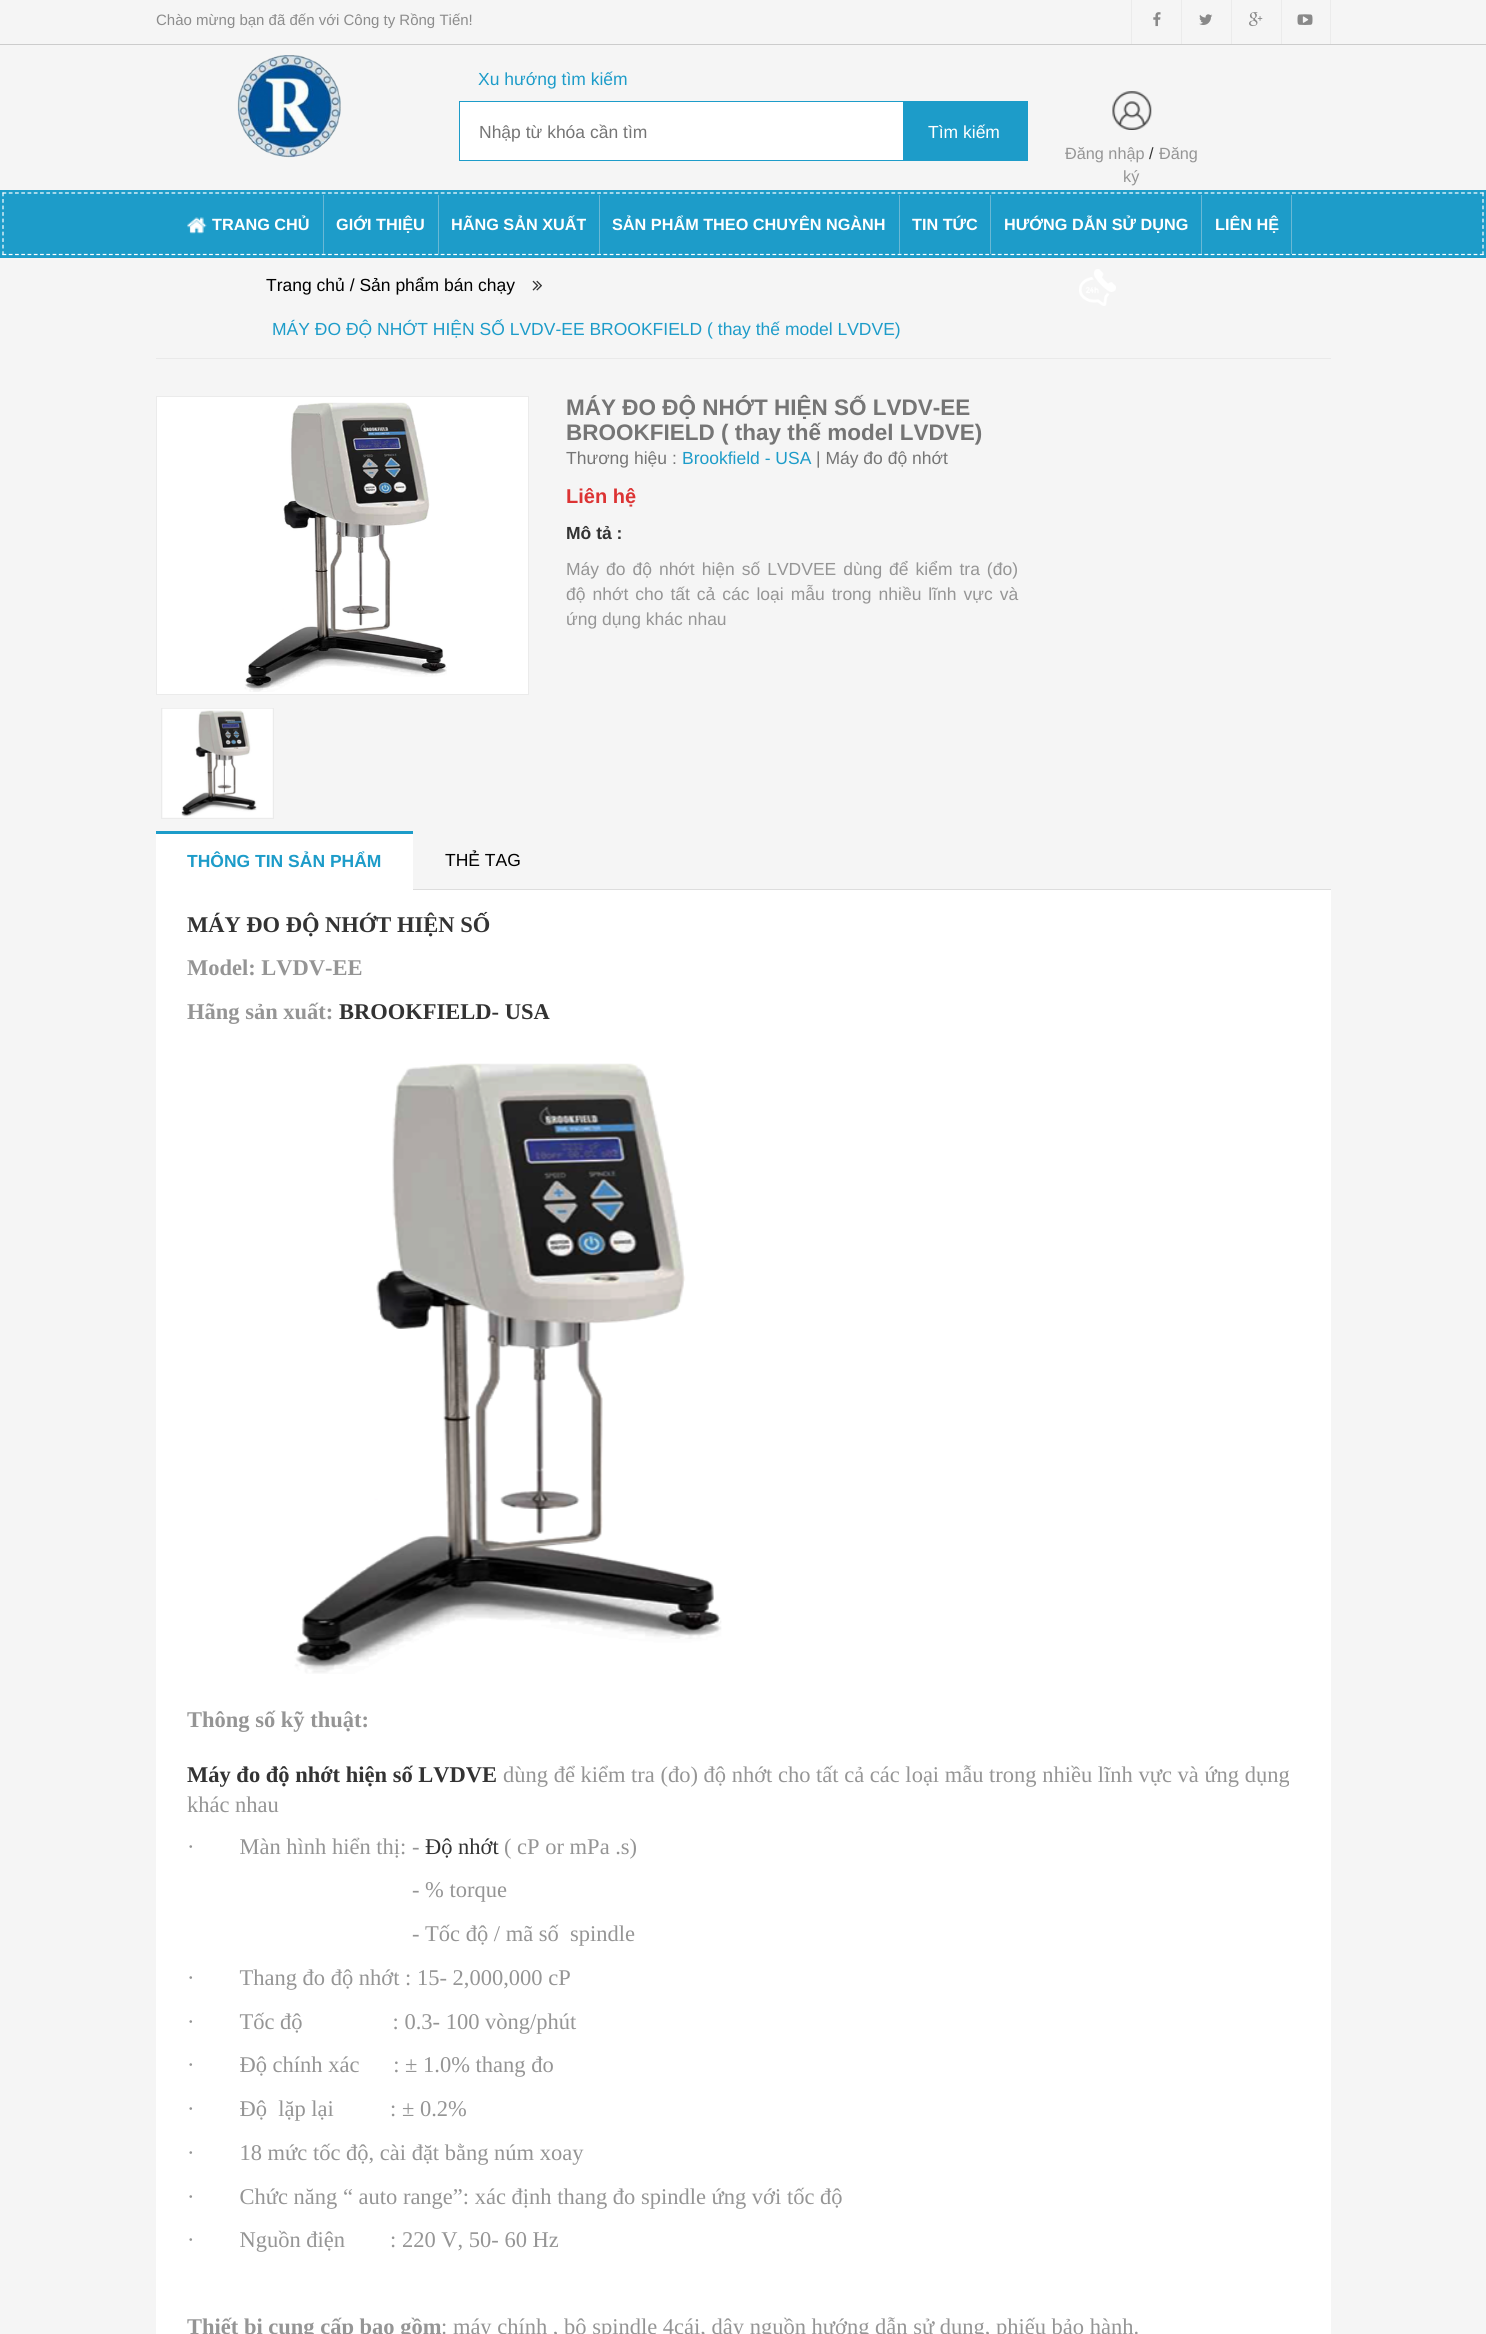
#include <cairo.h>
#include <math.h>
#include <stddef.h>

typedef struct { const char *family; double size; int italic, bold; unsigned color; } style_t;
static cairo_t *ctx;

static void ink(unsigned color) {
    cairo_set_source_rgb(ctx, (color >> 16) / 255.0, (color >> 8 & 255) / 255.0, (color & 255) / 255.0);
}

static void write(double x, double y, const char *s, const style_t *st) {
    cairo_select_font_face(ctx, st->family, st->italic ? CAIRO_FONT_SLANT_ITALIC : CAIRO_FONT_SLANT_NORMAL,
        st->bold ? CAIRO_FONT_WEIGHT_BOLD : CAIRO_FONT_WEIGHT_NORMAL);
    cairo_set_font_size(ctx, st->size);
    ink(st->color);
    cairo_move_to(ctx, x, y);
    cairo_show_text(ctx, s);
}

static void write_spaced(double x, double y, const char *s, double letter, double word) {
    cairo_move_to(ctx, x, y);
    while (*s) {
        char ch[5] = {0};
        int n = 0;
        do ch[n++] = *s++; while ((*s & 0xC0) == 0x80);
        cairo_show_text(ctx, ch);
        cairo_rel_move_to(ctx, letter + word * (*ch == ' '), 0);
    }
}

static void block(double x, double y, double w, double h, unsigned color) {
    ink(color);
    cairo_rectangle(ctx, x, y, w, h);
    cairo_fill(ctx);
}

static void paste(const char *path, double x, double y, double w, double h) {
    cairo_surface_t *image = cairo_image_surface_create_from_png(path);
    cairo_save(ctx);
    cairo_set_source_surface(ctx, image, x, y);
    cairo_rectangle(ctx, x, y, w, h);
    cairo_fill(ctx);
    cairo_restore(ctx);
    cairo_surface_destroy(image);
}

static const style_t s1 = {"Liberation Sans", 15, 0, 0, 0x8c8c8c};
static const style_t s2 = {"Liberation Sans", 17.5, 0, 0, 0x1d9cc9};
static const style_t s3 = {"Liberation Sans", 17.5, 0, 0, 0x757575};
static const style_t s4 = {"Liberation Sans", 17.5, 0, 0, 0xffffff};
static const style_t s5 = {"Liberation Sans", 16.25, 0, 0, 0x959595};
static const style_t s6 = {"Liberation Sans", 16.25, 0, 0, 0x333333};
static const style_t s7 = {"Liberation Sans", 16.25, 0, 1, 0xffffff};
static const style_t s8 = {"Liberation Sans", 17.5, 0, 0, 0x000000};
static const style_t s9 = {"Liberation Sans", 22.5, 0, 1, 0x757575};
static const style_t s10 = {"Liberation Sans", 20, 0, 1, 0xdc3333};
static const style_t s11 = {"Liberation Sans", 17.5, 0, 1, 0x333333};
static const style_t s12 = {"Liberation Sans", 17.5, 0, 0, 0x959595};
static const style_t s13 = {"Liberation Sans", 17.5, 0, 1, 0x1d9cc9};
static const style_t s14 = {"Liberation Serif", 22.5, 0, 1, 0x333333};
static const style_t s15 = {"Liberation Serif", 22.5, 0, 1, 0x959595};
static const style_t s16 = {"Liberation Serif", 22.5, 0, 0, 0x959595};
static const style_t s17 = {"Liberation Serif", 22.5, 0, 0, 0x333333};

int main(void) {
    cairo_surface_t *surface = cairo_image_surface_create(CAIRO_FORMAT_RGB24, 1486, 2334);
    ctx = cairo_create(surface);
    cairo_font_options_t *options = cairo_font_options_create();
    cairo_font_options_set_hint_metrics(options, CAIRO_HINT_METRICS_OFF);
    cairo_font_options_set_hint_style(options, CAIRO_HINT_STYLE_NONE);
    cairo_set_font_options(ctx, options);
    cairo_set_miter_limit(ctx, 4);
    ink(0xf5f5f5);
    cairo_paint(ctx);
    block(0, 44, 1486, 1, 0xcccccc);
    write(156, 25, "Chào mừng bạn đã đến với Công ty Rồng Tiến!", &s1);
    block(1131, 0, 1, 44, 0xebebeb);
    paste("pic1.png", 1153, 12, 8, 15);
    block(1181, 0, 1, 44, 0xebebeb);
    paste("pic2.png", 1199, 14, 14, 11);
    block(1231, 0, 1, 44, 0xebebeb);
    paste("pic3.png", 1249, 12, 14, 15);
    block(1330, 0, 1, 44, 0xebebeb);
    block(1281, 0, 1, 44, 0xebebeb);
    paste("pic4.png", 1297, 14, 16, 11);
    paste("pic5.png", 237, 55, 104, 103);
    write(478, 85, "Xu hướng tìm kiếm", &s2);
    block(460, 102, 443, 58, 0xffffff);
    cairo_rectangle(ctx, 459.5, 101.5, 568, 59);
    ink(0x1d9cc9);
    cairo_set_line_width(ctx, 1);
    cairo_stroke(ctx);
    write(479, 138, "Nhập từ khóa cần tìm", &s3);
    block(903, 102, 124, 58, 0x1d9cc9);
    write(928, 138, "Tìm kiếm", &s4);
    paste("pic6.png", 1112, 91, 40, 39);
    write(1065, 159, "Đăng nhập", &s5);
    write(1149, 159, "/", &s6);
    write(1159, 159, "Đăng", &s5);
    write(1123, 182, "ký", &s5);
    block(0, 190, 1486, 68, 0x1d9cc9);
    block(438, 195, 1, 59, 0x6ab8d4);
    cairo_new_path(ctx);
    cairo_move_to(ctx, 2.5, 193);
    cairo_line_to(ctx, 1484, 193);
    ink(0xffffff);
    cairo_set_line_width(ctx, 1.2);
    cairo_set_dash(ctx, (double[]){3.75, 2.51}, 2, 0);
    cairo_stroke(ctx);
    cairo_new_path(ctx);
    cairo_move_to(ctx, 1483, 192.5);
    cairo_line_to(ctx, 1483, 255);
    cairo_set_dash(ctx, (double[]){3.75, 2.78}, 2, 0);
    cairo_stroke(ctx);
    cairo_new_path(ctx);
    cairo_move_to(ctx, 2.5, 254.5);
    cairo_line_to(ctx, 1484, 254.5);
    cairo_set_dash(ctx, (double[]){3.75, 2.51}, 2, 0);
    cairo_stroke(ctx);
    cairo_new_path(ctx);
    cairo_move_to(ctx, 3, 192.5);
    cairo_line_to(ctx, 3, 255);
    cairo_set_dash(ctx, (double[]){3.75, 2.78}, 2, 0);
    cairo_stroke(ctx);
    cairo_set_source_rgba(ctx, 0.886, 0.894, 0.902, 0.39);
    cairo_rectangle(ctx, 323, 195, 1, 59);
    cairo_fill(ctx);
    paste("pic7.png", 187, 217, 20, 17);
    write(212, 230, "TRANG CHỦ", &s7);
    write(336, 230, "GIỚI THIỆU", &s7);
    cairo_set_source_rgba(ctx, 0.886, 0.894, 0.902, 0.39);
    cairo_rectangle(ctx, 599, 195, 1, 59);
    cairo_fill(ctx);
    write(451, 230, "HÃNG SẢN XUẤT", &s7);
    cairo_set_source_rgba(ctx, 0.886, 0.894, 0.902, 0.39);
    cairo_rectangle(ctx, 899, 195, 1, 59);
    cairo_fill(ctx);
    write(612, 230, "SẢN PHẨM THEO CHUYÊN NGÀNH", &s7);
    block(990, 195, 1, 59, 0x6ab8d4);
    write(912, 230, "TIN TỨC", &s7);
    cairo_set_source_rgba(ctx, 0.886, 0.894, 0.902, 0.39);
    cairo_rectangle(ctx, 1201, 195, 1, 59);
    cairo_fill(ctx);
    write(1004, 230, "HƯỚNG DẪN SỬ DỤNG", &s7);
    block(1291, 195, 1, 59, 0x6ab8d4);
    write(1215, 230, "LIÊN HỆ", &s7);
    paste("pic8.png", 1079, 269, 37, 37);
    block(156, 358, 1175, 1, 0xe9e9e9);
    write(266, 291, "Trang chủ / Sản phẩm bán chạy", &s8);
    paste("pic9.png", 532, 280, 10, 11);
    write(272, 335, "MÁY ĐO ĐỘ NHỚT HIỆN SỐ LVDV-EE BROOKFIELD ( thay thế model LVDVE)", &s2);
    ink(0xffffff);
    cairo_rectangle(ctx, 156.5, 396.5, 372, 298);
    cairo_fill_preserve(ctx);
    ink(0xebebeb);
    cairo_set_line_width(ctx, 1);
    cairo_set_dash(ctx, NULL, 0, 0);
    cairo_stroke(ctx);
    paste("pic10.png", 244, 402, 203, 290);
    cairo_rectangle(ctx, 161.5, 708.5, 112, 110);
    cairo_stroke(ctx);
    paste("pic11.png", 162, 708, 111, 110);
    write(566, 415, "MÁY ĐO ĐỘ NHỚT HIỆN SỐ LVDV-EE", &s9);
    write(566, 440, "BROOKFIELD ( thay thế model LVDVE)", &s9);
    write(566, 464, "Thương hiệu :", &s3);
    write(682, 464, "Brookfield - USA", &s2);
    write(816, 464, "| Máy đo độ nhớt", &s3);
    write(566, 503, "Liên hệ", &s10);
    write(566, 539, "Mô tả :", &s11);
    cairo_select_font_face(ctx, "Liberation Sans", CAIRO_FONT_SLANT_NORMAL, CAIRO_FONT_WEIGHT_NORMAL);
    ink(0x959595);
    write_spaced(566, 575, "Máy đo độ nhớt hiện số LVDVEE dùng để kiểm tra (đo)", 0, 2.1);
    write_spaced(566, 600, "độ nhớt cho tất cả các loại mẫu trong nhiều lĩnh vực và", 0, 2.1);
    write(566, 625, "ứng dụng khác nhau", &s12);
    block(413, 889, 918, 1, 0xdddddd);
    block(156, 834, 257, 56, 0xffffff);
    block(156, 831, 257, 3, 0x1d9cc9);
    write(187, 867, "THÔNG TIN SẢN PHẨM", &s13);
    write(445, 866, "THẺ TAG", &s8);
    block(156, 890, 1175, 1444, 0xffffff);
    write(187, 932, "MÁY ĐO ĐỘ NHỚT HIỆN SỐ", &s14);
    write(187, 975, "Model: LVDV-EE", &s15);
    write(187, 1019, "Hãng sản xuất:", &s15);
    write(339, 1019, "BROOKFIELD- USA", &s14);
    paste("pic12.png", 294, 1063, 428, 611);
    write(187, 1727, "Thông số kỹ thuật:", &s15);
    write(187, 1782, "Máy đo độ nhớt hiện số LVDVE", &s14);
    write(503, 1782, "dùng để kiểm tra (đo) độ nhớt cho tất cả các loại mẫu trong nhiều lĩnh vực và ứng dụng", &s16);
    write(187, 1812, "khác nhau", &s16);
    write(187, 1854, "·        Màn hình hiển thị: -", &s16);
    write(425, 1854, "Độ nhớt", &s17);
    write(504, 1854, "( cP or mPa .s)", &s16);
    write(412, 1897, "- % torque", &s16);
    write(412, 1941, "- Tốc độ / mã số  spindle", &s16);
    write(187, 1985, "·        Thang đo độ nhớt : 15- 2,000,000 cP", &s16);
    write(187, 2029, "·        Tốc độ                : 0.3- 100 vòng/phút", &s16);
    write(187, 2072, "·        Độ chính xác      : ± 1.0% thang đo", &s16);
    write(187, 2116, "·        Độ  lặp lại          : ± 0.2%", &s16);
    write(187, 2160, "·        18 mức tốc độ, cài đặt bằng núm xoay", &s16);
    write(187, 2204, "·        Chức năng “ auto range”: xác định thang đo spindle ứng với tốc độ", &s16);
    write(187, 2247, "·        Nguồn điện        : 220 V, 50- 60 Hz", &s16);
    write(187, 2334, "Thiết bị cung cấp bao gồm", &s15);
    write(441, 2334, ": máy chính , bộ spindle 4cái, dây nguồn hướng dẫn sử dụng, phiếu bảo hành.", &s16);
    cairo_surface_write_to_png(surface, "screenshot.png");
    cairo_font_options_destroy(options);
    cairo_destroy(ctx);
    cairo_surface_destroy(surface);
    return 0;
}
